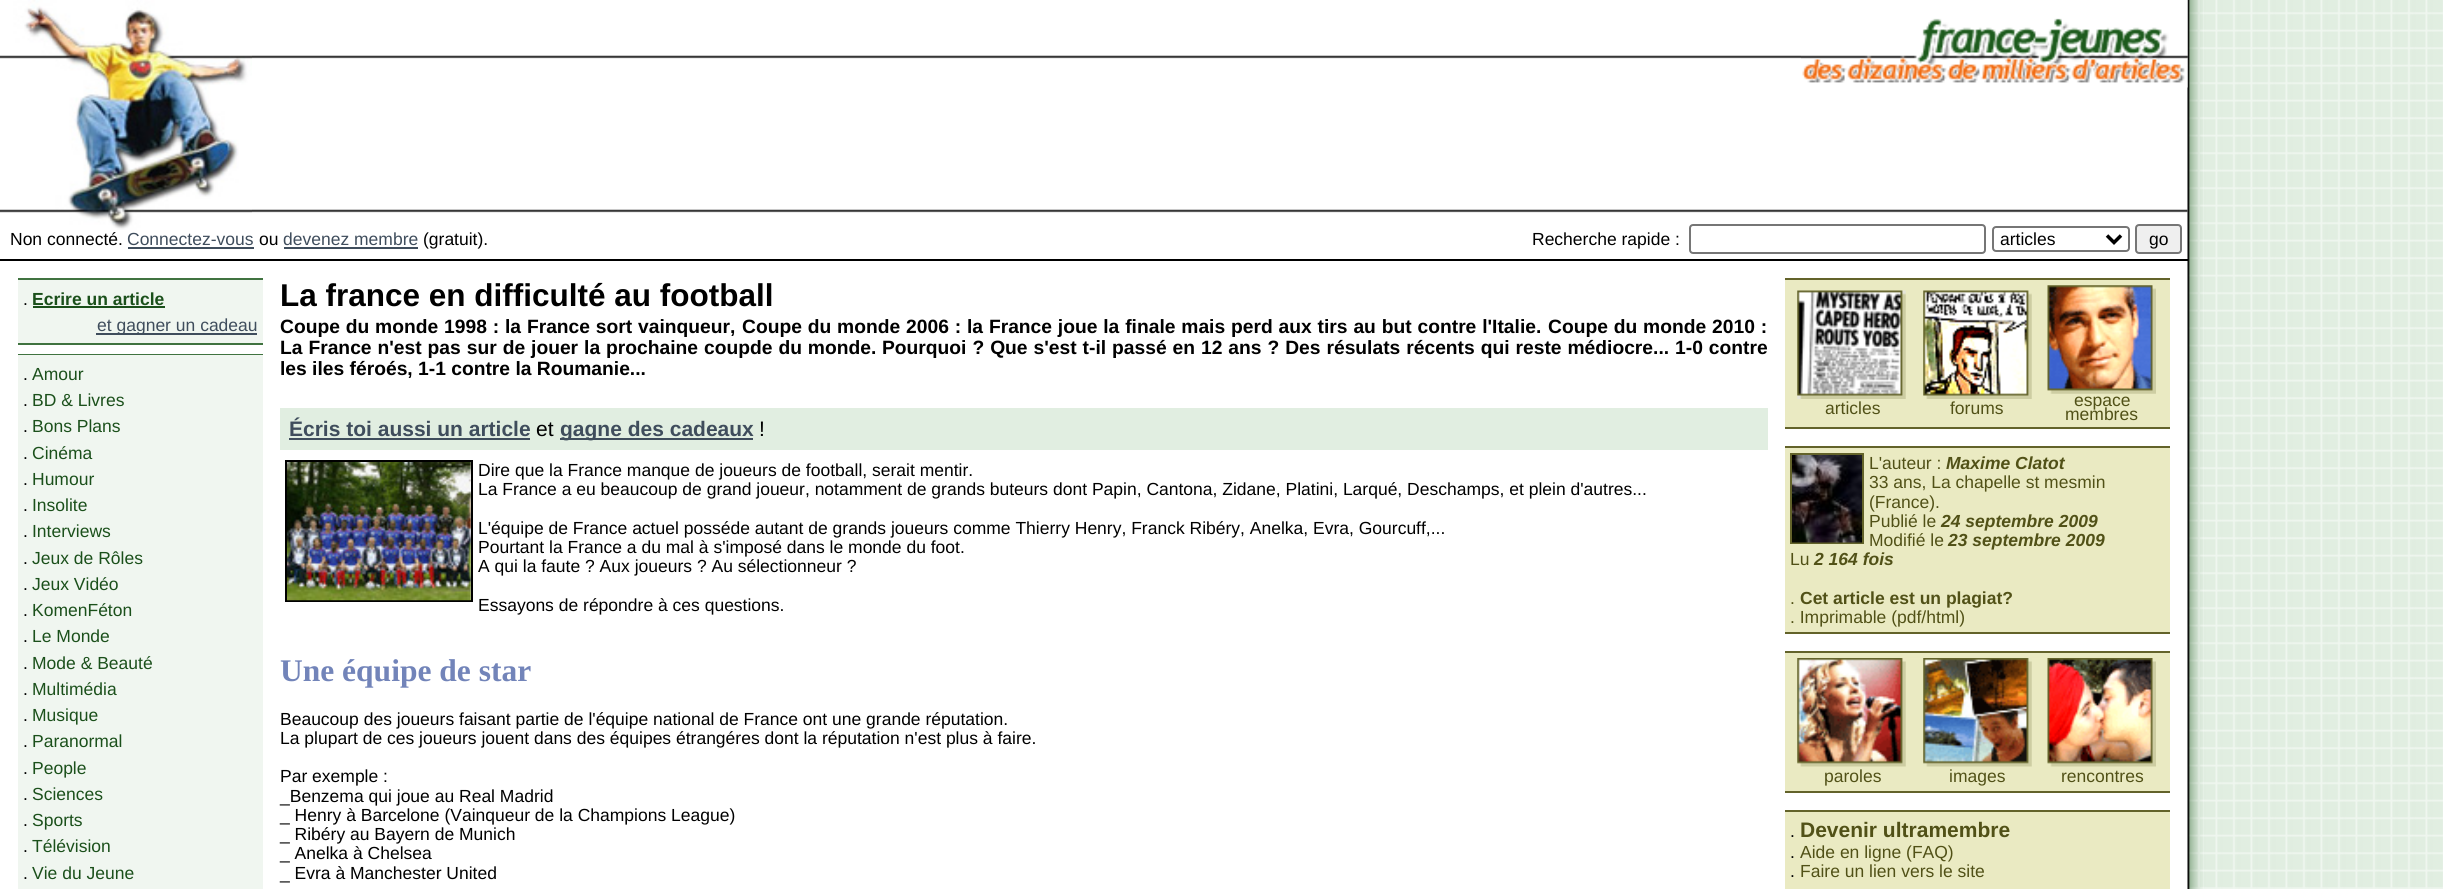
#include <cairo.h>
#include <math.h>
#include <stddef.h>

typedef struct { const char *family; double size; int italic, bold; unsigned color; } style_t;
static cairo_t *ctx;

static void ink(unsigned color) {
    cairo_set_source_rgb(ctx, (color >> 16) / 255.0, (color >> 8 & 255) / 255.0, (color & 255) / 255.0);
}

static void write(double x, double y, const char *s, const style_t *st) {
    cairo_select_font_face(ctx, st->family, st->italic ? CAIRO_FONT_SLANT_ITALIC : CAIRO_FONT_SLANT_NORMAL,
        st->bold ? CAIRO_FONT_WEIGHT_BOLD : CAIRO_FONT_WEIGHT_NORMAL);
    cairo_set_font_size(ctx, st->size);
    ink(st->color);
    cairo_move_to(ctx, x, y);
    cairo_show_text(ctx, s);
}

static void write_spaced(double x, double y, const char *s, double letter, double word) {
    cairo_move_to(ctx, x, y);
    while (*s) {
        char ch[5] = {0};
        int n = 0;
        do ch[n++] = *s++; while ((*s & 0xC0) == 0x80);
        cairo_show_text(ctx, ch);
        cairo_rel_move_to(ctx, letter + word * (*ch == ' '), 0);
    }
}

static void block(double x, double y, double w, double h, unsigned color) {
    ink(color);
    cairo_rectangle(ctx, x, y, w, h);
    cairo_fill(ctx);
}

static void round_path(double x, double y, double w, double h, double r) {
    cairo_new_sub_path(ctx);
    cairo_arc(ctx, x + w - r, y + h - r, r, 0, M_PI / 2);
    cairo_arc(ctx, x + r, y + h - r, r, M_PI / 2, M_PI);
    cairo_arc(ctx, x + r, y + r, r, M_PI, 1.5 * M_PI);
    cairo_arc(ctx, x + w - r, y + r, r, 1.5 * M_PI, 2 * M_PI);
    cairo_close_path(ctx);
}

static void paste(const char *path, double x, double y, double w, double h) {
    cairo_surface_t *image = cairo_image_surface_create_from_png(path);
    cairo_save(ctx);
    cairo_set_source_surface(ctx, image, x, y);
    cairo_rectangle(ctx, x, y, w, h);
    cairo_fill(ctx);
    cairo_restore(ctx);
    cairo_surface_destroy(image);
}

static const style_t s1 = {"Liberation Sans", 17.5, 0, 0, 0x000000};
static const style_t s2 = {"Liberation Sans", 17.5, 0, 0, 0x3f4d5c};
static const style_t s3 = {"Liberation Sans", 17.5, 0, 1, 0x1b501b};
static const style_t s4 = {"Liberation Sans", 17.5, 0, 0, 0x1b501b};
static const style_t s5 = {"Liberation Sans", 31.5, 0, 1, 0x000000};
static const style_t s6 = {"Liberation Sans", 19.25, 0, 1, 0x000000};
static const style_t s7 = {"Liberation Sans", 21, 0, 1, 0x3f4d5c};
static const style_t s8 = {"Liberation Sans", 21, 0, 0, 0x000000};
static const style_t s9 = {"Liberation Serif", 31.5, 0, 1, 0x7284b9};
static const style_t s10 = {"Liberation Sans", 17.5, 0, 0, 0x515117};
static const style_t s11 = {"Liberation Sans", 17.5, 1, 1, 0x515117};
static const style_t s12 = {"Liberation Sans", 17.5, 0, 1, 0x515117};
static const style_t s13 = {"Liberation Sans", 21, 0, 1, 0x515117};

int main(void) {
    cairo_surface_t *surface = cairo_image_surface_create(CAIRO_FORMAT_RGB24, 2443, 889);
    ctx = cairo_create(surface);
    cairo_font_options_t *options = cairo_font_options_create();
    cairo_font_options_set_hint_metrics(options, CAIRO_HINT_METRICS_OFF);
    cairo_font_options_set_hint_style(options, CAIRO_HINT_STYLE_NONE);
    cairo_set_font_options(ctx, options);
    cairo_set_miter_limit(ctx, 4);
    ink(0xffffff);
    cairo_paint(ctx);
    paste("pic1.png", 0, 0, 252, 230);
    paste("pic2.png", 252, 55, 1936, 158);
    block(0, 259, 2188, 2, 0x000000);
    paste("pic12.png", 2187, 0, 17, 889);
    paste("pic3.png", 1801, 0, 387, 88);
    write(10, 245, "Non connecté.", &s1);
    write(127, 245, "Connectez-vous", &s2);
    block(128, 247, 126, 2, 0x3f4d5c);
    write(259, 245, "ou", &s1);
    write(283, 245, "devenez membre", &s2);
    block(284, 247, 134, 2, 0x3f4d5c);
    write(423, 245, "(gratuit).", &s1);
    write(1532, 245, "Recherche rapide :", &s1);
    round_path(1690, 225, 295, 28, 3);
    ink(0x767676);
    cairo_stroke(ctx);
    round_path(1993, 227, 136, 24, 3);
    cairo_stroke(ctx);
    cairo_new_path(ctx);
    cairo_move_to(ctx, 2107, 235.5);
    cairo_line_to(ctx, 2114, 242.5);
    cairo_line_to(ctx, 2121, 235.5);
    ink(0x000000);
    cairo_set_line_width(ctx, 3.5);
    cairo_stroke(ctx);
    write(2000, 245, "articles", &s1);
    ink(0xefefef);
    round_path(2136, 225, 45, 28, 3);
    cairo_fill_preserve(ctx);
    ink(0x767676);
    cairo_set_line_width(ctx, 2);
    cairo_stroke(ctx);
    write(2149, 245, "go", &s1);
    block(18, 278, 245, 2, 0x407340);
    block(18, 280, 245, 63, 0xf0f6f0);
    write(23, 305, ".", &s1);
    write(32, 305, "Ecrire un article", &s3);
    block(33, 306, 132, 2, 0x1b501b);
    block(96, 333, 161, 2, 0x3f4d5c);
    write(97, 331, "et gagner un cadeau", &s2);
    block(18, 343, 245, 2, 0x407340);
    block(18, 354, 245, 1, 0x407340);
    block(18, 355, 245, 534, 0xf0f6f0);
    write(23, 380, ".", &s1);
    write(32, 380, "Amour", &s4);
    write(23, 406, ".", &s1);
    write(32, 406, "BD & Livres", &s4);
    write(23, 432, ".", &s1);
    write(32, 432, "Bons Plans", &s4);
    write(23, 459, ".", &s1);
    write(32, 459, "Cinéma", &s4);
    write(23, 485, ".", &s1);
    write(32, 485, "Humour", &s4);
    write(23, 511, ".", &s1);
    write(32, 511, "Insolite", &s4);
    write(23, 537, ".", &s1);
    write(32, 537, "Interviews", &s4);
    write(23, 564, ".", &s1);
    write(32, 564, "Jeux de Rôles", &s4);
    write(23, 590, ".", &s1);
    write(32, 590, "Jeux Vidéo", &s4);
    write(23, 616, ".", &s1);
    write(32, 616, "KomenFéton", &s4);
    write(23, 642, ".", &s1);
    write(32, 642, "Le Monde", &s4);
    write(23, 669, ".", &s1);
    write(32, 669, "Mode & Beauté", &s4);
    write(23, 695, ".", &s1);
    write(32, 695, "Multimédia", &s4);
    write(23, 721, ".", &s1);
    write(32, 721, "Musique", &s4);
    write(23, 747, ".", &s1);
    write(32, 747, "Paranormal", &s4);
    write(23, 774, ".", &s1);
    write(32, 774, "People", &s4);
    write(23, 800, ".", &s1);
    write(32, 800, "Sciences", &s4);
    write(23, 826, ".", &s1);
    write(32, 826, "Sports", &s4);
    write(23, 852, ".", &s1);
    write(32, 852, "Télévision", &s4);
    write(23, 879, ".", &s1);
    write(32, 879, "Vie du Jeune", &s4);
    write(280, 306, "La france en difficulté au football", &s5);
    cairo_set_font_size(ctx, 19.25);
    write_spaced(280, 333, "Coupe du monde 1998 : la France sort vainqueur,", 0, 0.5);
    write_spaced(742, 333, "Coupe du monde 2006 : la France joue la finale mais perd aux tirs au but contre l'Italie.", 0, 0.5);
    write_spaced(1548, 333, "Coupe du monde 2010 :", 0, 0.5);
    write_spaced(280, 354, "La France n'est pas sur de jouer la prochaine coupde du monde.", 0, 0.6);
    write_spaced(882, 354, "Pourquoi ? Que s'est t-il passé en 12 ans ? Des résulats récents qui reste médiocre... 1-0 contre", 0, 0.6);
    write(280, 375, "les iles féroés, 1-1 contre la Roumanie...", &s6);
    block(280, 408, 1488, 42, 0xe1eee1);
    write(289, 436, "Écris toi aussi un article", &s7);
    block(289, 438, 241, 2, 0x3f4d5c);
    write(536, 436, "et", &s8);
    block(560, 438, 193, 2, 0x3f4d5c);
    write(560, 436, "gagne des cadeaux", &s7);
    write(759, 436, "!", &s8);
    cairo_rectangle(ctx, 286, 461, 186, 140);
    cairo_stroke(ctx);
    paste("pic4.png", 287, 462, 184, 139);
    write(478, 476, "Dire que la France manque de joueurs de football, serait mentir.", &s1);
    write(478, 495, "La France a eu beaucoup de grand joueur, notamment de grands buteurs dont Papin, Cantona, Zidane, Platini, Larqué, Deschamps, et plein d'autres...", &s1);
    write(478, 534, "L'équipe de France actuel posséde autant de grands joueurs comme Thierry Henry, Franck Ribéry, Anelka, Evra, Gourcuff,...", &s1);
    write(478, 553, "Pourtant la France a du mal à s'imposé dans le monde du foot.", &s1);
    write(478, 572, "A qui la faute ? Aux joueurs ? Au sélectionneur ?", &s1);
    write(478, 611, "Essayons de répondre à ces questions.", &s1);
    write(280, 681, "Une équipe de star", &s9);
    write(280, 725, "Beaucoup des joueurs faisant partie de l'équipe national de France ont une grande réputation.", &s1);
    write(280, 744, "La plupart de ces joueurs jouent dans des équipes étrangéres dont la réputation n'est plus à faire.", &s1);
    write(280, 782, "Par exemple :", &s1);
    write(280, 802, "_Benzema qui joue au Real Madrid", &s1);
    write(280, 821, "_ Henry à Barcelone (Vainqueur de la Champions League)", &s1);
    write(280, 840, "_ Ribéry au Bayern de Munich", &s1);
    write(280, 859, "_ Anelka à Chelsea", &s1);
    write(280, 879, "_ Evra à Manchester United", &s1);
    block(1785, 278, 385, 2, 0x63632a);
    block(1785, 280, 385, 147, 0xeaeac2);
    paste("pic5.png", 1797, 290, 109, 109);
    write(1825, 414, "articles", &s10);
    paste("pic6.png", 1923, 290, 109, 109);
    write(1950, 414, "forums", &s10);
    paste("pic7.png", 2047, 285, 109, 109);
    write(2074, 406, "espace", &s10);
    write(2065, 420, "membres", &s10);
    block(1785, 427, 385, 2, 0x63632a);
    block(1785, 446, 385, 2, 0x63632a);
    block(1785, 448, 385, 184, 0xeaeac2);
    cairo_rectangle(ctx, 1791, 454, 72, 89);
    ink(0x63632a);
    cairo_stroke(ctx);
    paste("pic8.png", 1792, 455, 70, 88);
    write(1869, 469, "L'auteur :", &s10);
    write(1946, 469, "Maxime Clatot", &s11);
    write(1869, 488, "33 ans, La chapelle st mesmin", &s10);
    write(1869, 508, "(France).", &s10);
    write(1869, 527, "Publié le", &s10);
    write(1941, 527, "24 septembre 2009", &s11);
    write(1869, 546, "Modifié le", &s10);
    write(1948, 546, "23 septembre 2009", &s11);
    write(1790, 565, "Lu", &s10);
    write(1814, 565, "2 164 fois", &s11);
    write(1790, 604, ".", &s10);
    write(1800, 604, "Cet article est un plagiat?", &s12);
    write(1790, 623, ". Imprimable (pdf/html)", &s10);
    block(1785, 632, 385, 2, 0x63632a);
    block(1785, 651, 385, 2, 0x63632a);
    block(1785, 653, 385, 138, 0xeaeac2);
    paste("pic9.png", 1797, 658, 109, 109);
    write(1824, 782, "paroles", &s10);
    paste("pic10.png", 1923, 658, 109, 109);
    write(1949, 782, "images", &s10);
    paste("pic11.png", 2047, 658, 109, 109);
    write(2061, 782, "rencontres", &s10);
    block(1785, 791, 385, 2, 0x63632a);
    block(1785, 810, 385, 2, 0x63632a);
    block(1785, 812, 385, 77, 0xeaeac2);
    write(1790, 837, ".", &s1);
    write(1800, 837, "Devenir ultramembre", &s13);
    write(1790, 858, ".", &s1);
    write(1800, 858, "Aide en ligne (FAQ)", &s10);
    write(1790, 877, ".", &s1);
    write(1800, 877, "Faire un lien vers le site", &s10);
    paste("pic13.png", 2203, 0, 240, 889);
    cairo_surface_write_to_png(surface, "screenshot.png");
    cairo_font_options_destroy(options);
    cairo_destroy(ctx);
    cairo_surface_destroy(surface);
    return 0;
}
